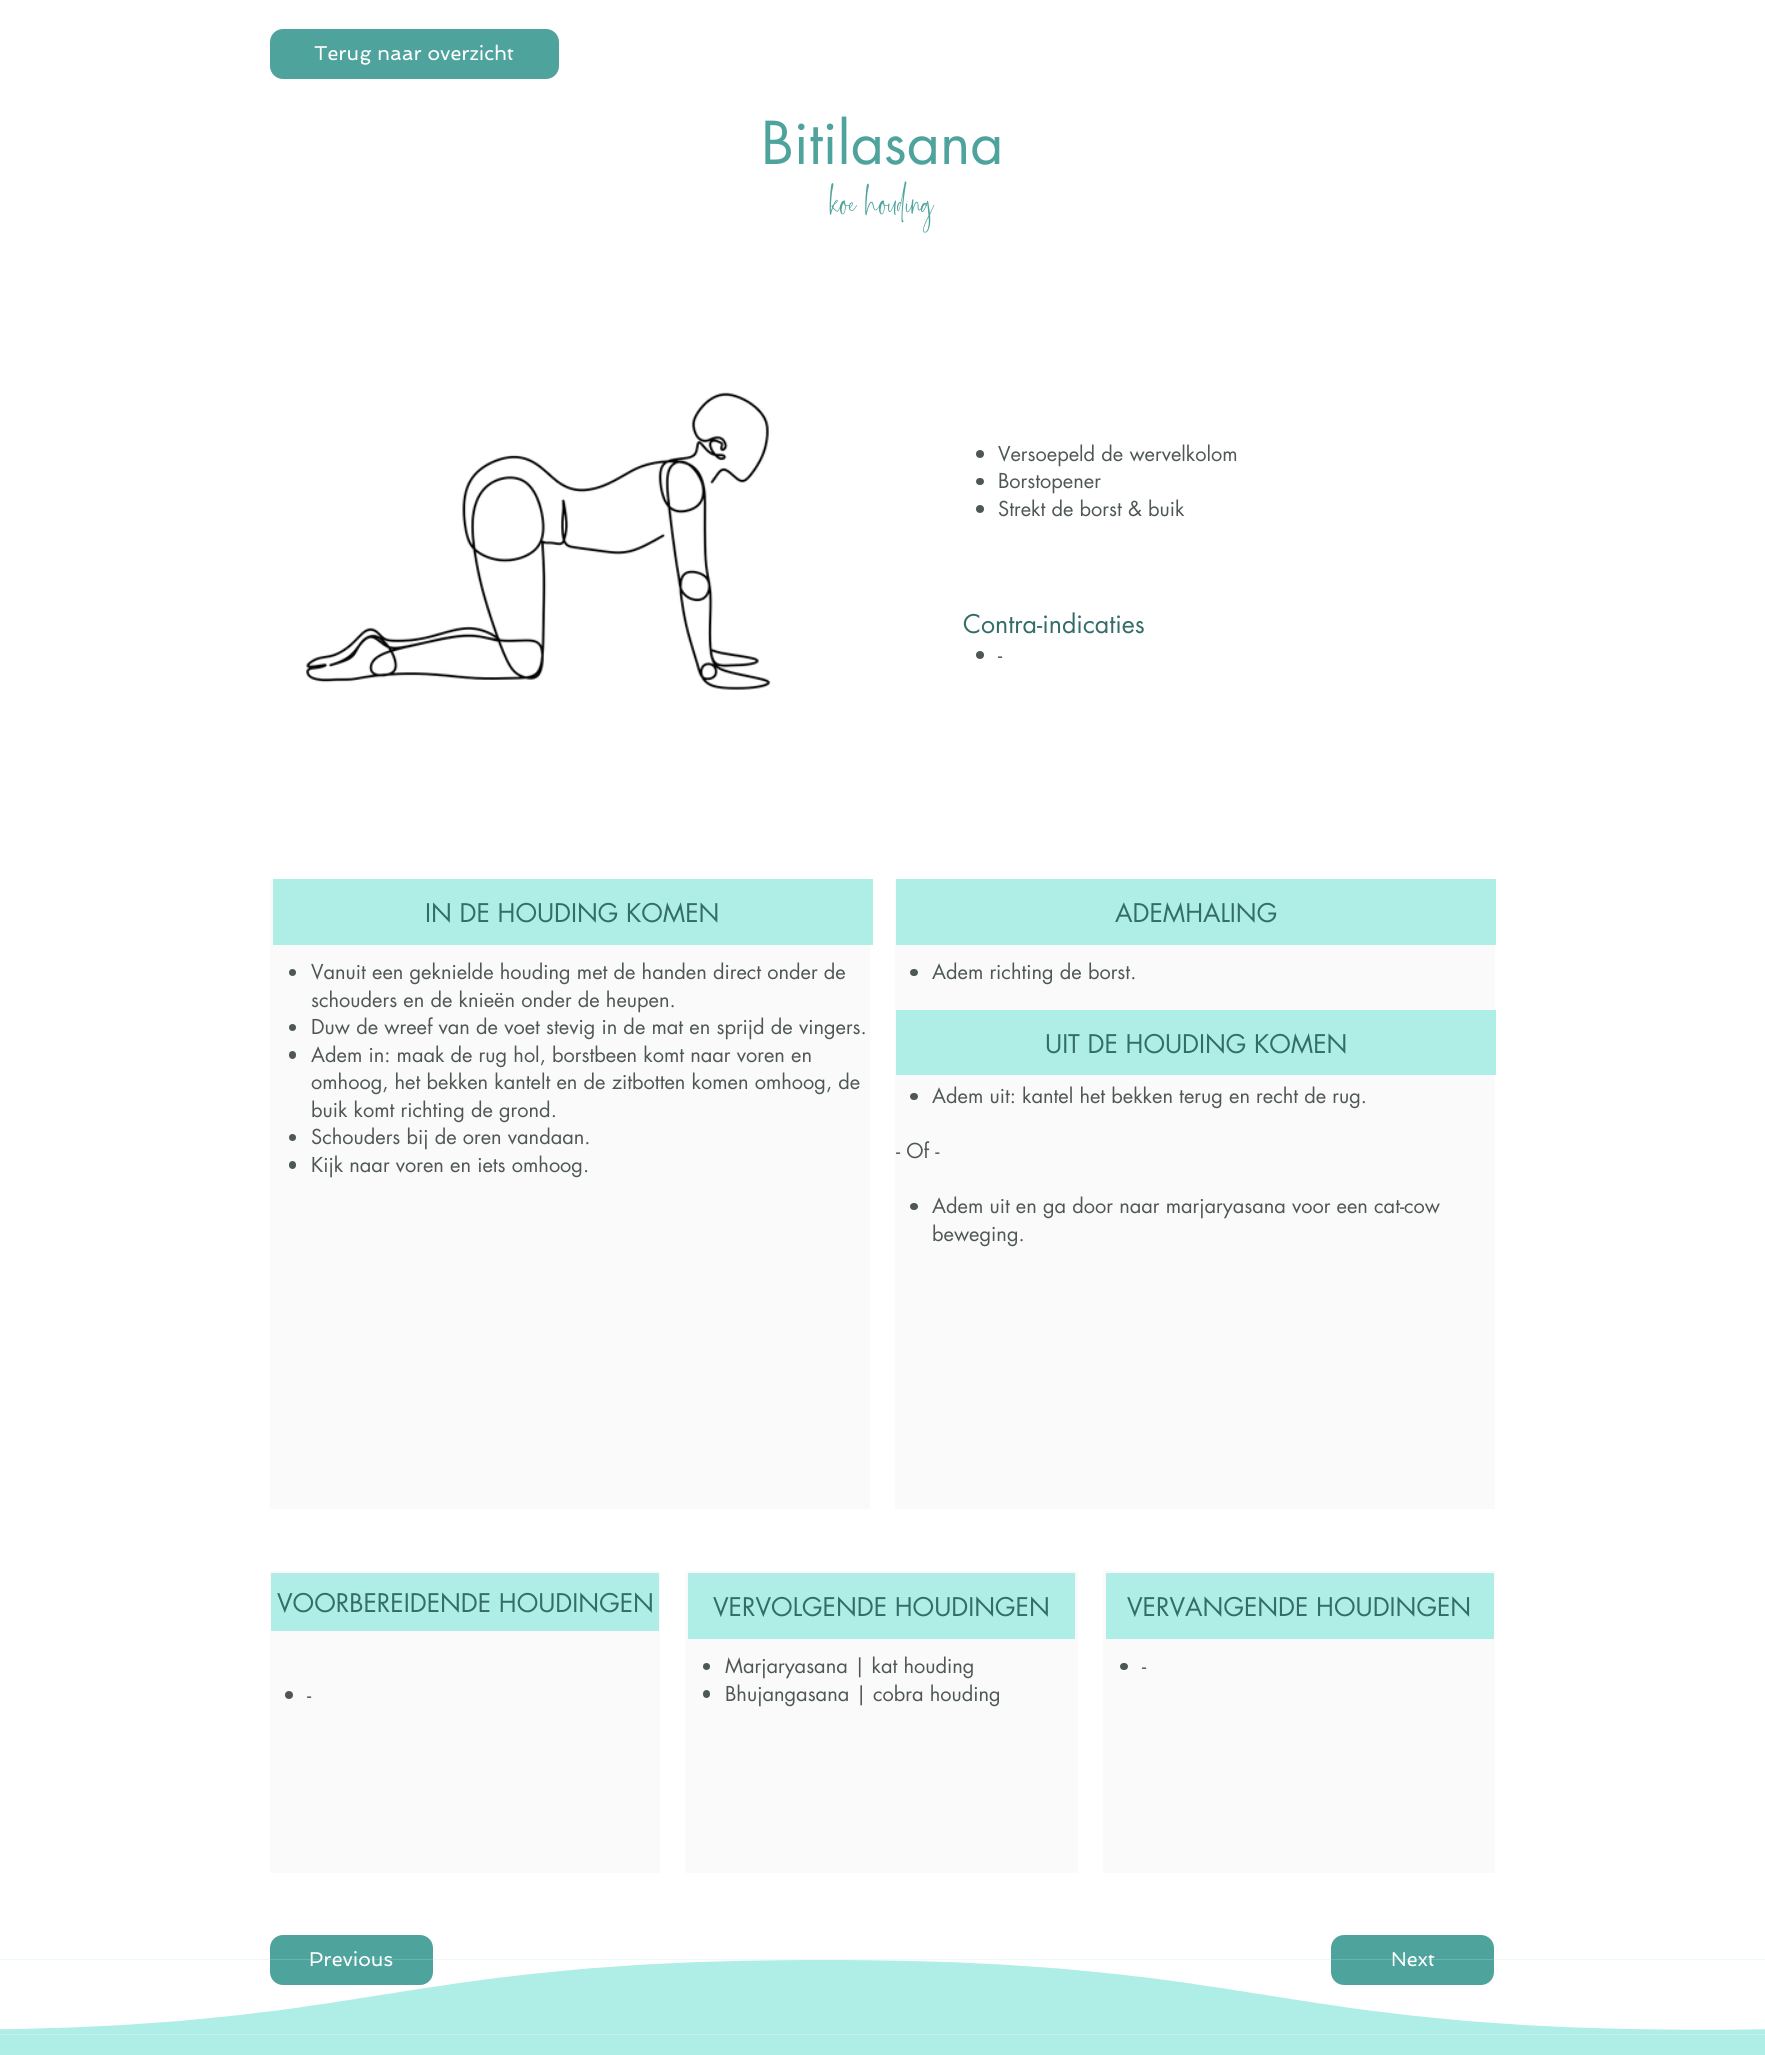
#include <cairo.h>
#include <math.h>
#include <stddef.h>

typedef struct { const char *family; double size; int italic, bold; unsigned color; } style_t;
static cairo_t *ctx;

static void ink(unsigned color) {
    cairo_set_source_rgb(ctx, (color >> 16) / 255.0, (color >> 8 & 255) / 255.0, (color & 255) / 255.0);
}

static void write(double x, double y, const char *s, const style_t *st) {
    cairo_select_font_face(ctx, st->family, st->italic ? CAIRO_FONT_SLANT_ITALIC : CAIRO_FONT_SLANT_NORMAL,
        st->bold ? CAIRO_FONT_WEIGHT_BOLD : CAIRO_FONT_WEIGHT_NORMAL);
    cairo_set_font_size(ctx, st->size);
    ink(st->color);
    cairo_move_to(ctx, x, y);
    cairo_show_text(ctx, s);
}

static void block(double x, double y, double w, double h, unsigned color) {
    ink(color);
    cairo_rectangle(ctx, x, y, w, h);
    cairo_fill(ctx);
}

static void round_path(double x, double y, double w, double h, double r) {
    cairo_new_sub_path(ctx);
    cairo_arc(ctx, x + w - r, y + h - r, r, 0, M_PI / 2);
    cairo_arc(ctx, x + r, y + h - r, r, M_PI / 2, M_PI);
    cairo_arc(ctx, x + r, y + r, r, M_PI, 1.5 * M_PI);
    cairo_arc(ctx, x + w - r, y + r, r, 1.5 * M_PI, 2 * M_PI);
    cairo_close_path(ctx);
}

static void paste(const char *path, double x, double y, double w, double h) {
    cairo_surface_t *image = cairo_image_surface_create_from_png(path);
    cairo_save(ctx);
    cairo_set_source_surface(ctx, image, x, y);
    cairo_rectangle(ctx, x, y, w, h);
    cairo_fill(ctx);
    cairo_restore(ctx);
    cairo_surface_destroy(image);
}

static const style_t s1 = {"Spinnaker", 20, 0, 0, 0xffffff};
static const style_t s2 = {"futura", 57.5, 0, 0, 0x4ea39c};
static const style_t s3 = {"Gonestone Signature", 31, 0, 0, 0x4ea39c};
static const style_t s4 = {"futura", 20, 0, 0, 0x4f5756};
static const style_t s5 = {"futura", 25, 0, 0, 0x346d68};

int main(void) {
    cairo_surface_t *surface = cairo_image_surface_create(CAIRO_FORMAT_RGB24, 1765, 2055);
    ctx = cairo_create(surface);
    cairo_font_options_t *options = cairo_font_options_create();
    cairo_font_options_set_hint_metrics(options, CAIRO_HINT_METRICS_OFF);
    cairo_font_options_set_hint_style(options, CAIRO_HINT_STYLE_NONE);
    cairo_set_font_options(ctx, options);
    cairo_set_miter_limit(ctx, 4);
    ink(0xffffff);
    cairo_paint(ctx);
    ink(0x4ea39c);
    round_path(271.5, 30.5, 286, 47, 11.5);
    cairo_fill_preserve(ctx);
    cairo_set_line_width(ctx, 3);
    cairo_stroke(ctx);
    write(314, 60, "Terug naar overzicht", &s1);
    write(761, 164, "Bitilasana", &s2);
    write(830, 217, "koe houding", &s3);
    paste("pic1.png", 306, 392, 465, 298);
    ink(0x4f5756);
    cairo_arc(ctx, 980, 454, 4, 0, 2 * M_PI);
    cairo_fill(ctx);
    write(998, 461, "Versoepeld de wervelkolom", &s4);
    round_path(976, 478, 8, 7, 3.5);
    cairo_fill(ctx);
    write(998, 488, "Borstopener", &s4);
    cairo_new_path(ctx);
    cairo_arc(ctx, 980, 509, 4, 0, 2 * M_PI);
    cairo_fill(ctx);
    write(998, 516, "Strekt de borst & buik", &s4);
    write(963, 633, "Contra-indicaties", &s5);
    ink(0x4f5756);
    cairo_new_path(ctx);
    cairo_arc(ctx, 980, 655, 4, 0, 2 * M_PI);
    cairo_fill(ctx);
    write(998, 662, "-", &s4);
    block(270, 879, 600, 630, 0xfafafa);
    block(273, 879, 600, 66, 0xafede7);
    write(425, 922, "IN DE HOUDING KOMEN", &s5);
    ink(0x4f5756);
    cairo_new_path(ctx);
    cairo_arc(ctx, 292.5, 972.5, 3.5, 0, 2 * M_PI);
    cairo_fill(ctx);
    write(311, 979, "Vanuit een geknielde houding met de handen direct onder de", &s4);
    write(311, 1007, "schouders en de knieën onder de heupen.", &s4);
    cairo_new_path(ctx);
    cairo_arc(ctx, 292.5, 1027.5, 3.5, 0, 2 * M_PI);
    cairo_fill(ctx);
    write(311, 1034, "Duw de wreef van de voet stevig in de mat en sprijd de vingers.", &s4);
    round_path(289, 1051, 7, 8, 3.5);
    cairo_fill(ctx);
    write(311, 1062, "Adem in: maak de rug hol, borstbeen komt naar voren en", &s4);
    write(311, 1089, "omhoog, het bekken kantelt en de zitbotten komen omhoog, de", &s4);
    write(311, 1117, "buik komt richting de grond.", &s4);
    cairo_new_path(ctx);
    cairo_arc(ctx, 292.5, 1137.5, 3.5, 0, 2 * M_PI);
    cairo_fill(ctx);
    write(311, 1144, "Schouders bij de oren vandaan.", &s4);
    round_path(289, 1161, 7, 8, 3.5);
    cairo_fill(ctx);
    write(311, 1172, "Kijk naar voren en iets omhoog.", &s4);
    block(895, 879, 600, 630, 0xfafafa);
    block(896, 879, 600, 66, 0xafede7);
    write(1115, 922, "ADEMHALING", &s5);
    ink(0x4f5756);
    round_path(910, 969, 8, 7, 3.5);
    cairo_fill(ctx);
    write(932, 979, "Adem richting de borst.", &s4);
    block(896, 1010, 600, 65, 0xafede7);
    write(1045, 1053, "UIT DE HOUDING KOMEN", &s5);
    ink(0x4f5756);
    round_path(910, 1093, 8, 7, 3.5);
    cairo_fill(ctx);
    write(932, 1103, "Adem uit: kantel het bekken terug en recht de rug.", &s4);
    write(896, 1158, "- Of -", &s4);
    round_path(910, 1203, 8, 7, 3.5);
    cairo_fill(ctx);
    write(932, 1213, "Adem uit en ga door naar marjaryasana voor een cat-cow", &s4);
    write(932, 1241, "beweging.", &s4);
    block(270, 1571, 390, 302, 0xfafafa);
    block(271, 1573, 388, 58, 0xafede7);
    write(277, 1612, "VOORBEREIDENDE HOUDINGEN", &s5);
    ink(0x4f5756);
    cairo_new_path(ctx);
    cairo_arc(ctx, 289, 1695, 4, 0, 2 * M_PI);
    cairo_fill(ctx);
    write(307, 1702, "-", &s4);
    block(685, 1571, 393, 302, 0xfafafa);
    block(688, 1573, 387, 66, 0xafede7);
    write(713, 1616, "VERVOLGENDE HOUDINGEN", &s5);
    ink(0x4f5756);
    cairo_new_path(ctx);
    cairo_arc(ctx, 706.5, 1666.5, 3.5, 0, 2 * M_PI);
    cairo_fill(ctx);
    write(725, 1673, "Marjaryasana | kat houding", &s4);
    round_path(703, 1690, 7, 8, 3.5);
    cairo_fill(ctx);
    write(725, 1701, "Bhujangasana | cobra houding", &s4);
    block(1103, 1571, 392, 302, 0xfafafa);
    block(1106, 1573, 388, 66, 0xafede7);
    write(1127, 1616, "VERVANGENDE HOUDINGEN", &s5);
    ink(0x4f5756);
    round_path(1120, 1663, 8, 7, 3.5);
    cairo_fill(ctx);
    write(1142, 1673, "-", &s4);
    ink(0x4ea39c);
    round_path(271.5, 1936.5, 160, 47, 11.5);
    cairo_fill_preserve(ctx);
    cairo_stroke(ctx);
    write(309, 1966, "Previous", &s1);
    ink(0x4ea39c);
    round_path(1332.5, 1936.5, 160, 47, 11.5);
    cairo_fill_preserve(ctx);
    cairo_stroke(ctx);
    write(1391, 1966, "Next", &s1);
    paste("pic2.png", 0, 1959, 1765, 76);
    block(0, 2035, 1765, 20, 0xafede7);
    cairo_surface_write_to_png(surface, "screenshot.png");
    cairo_font_options_destroy(options);
    cairo_destroy(ctx);
    cairo_surface_destroy(surface);
    return 0;
}
